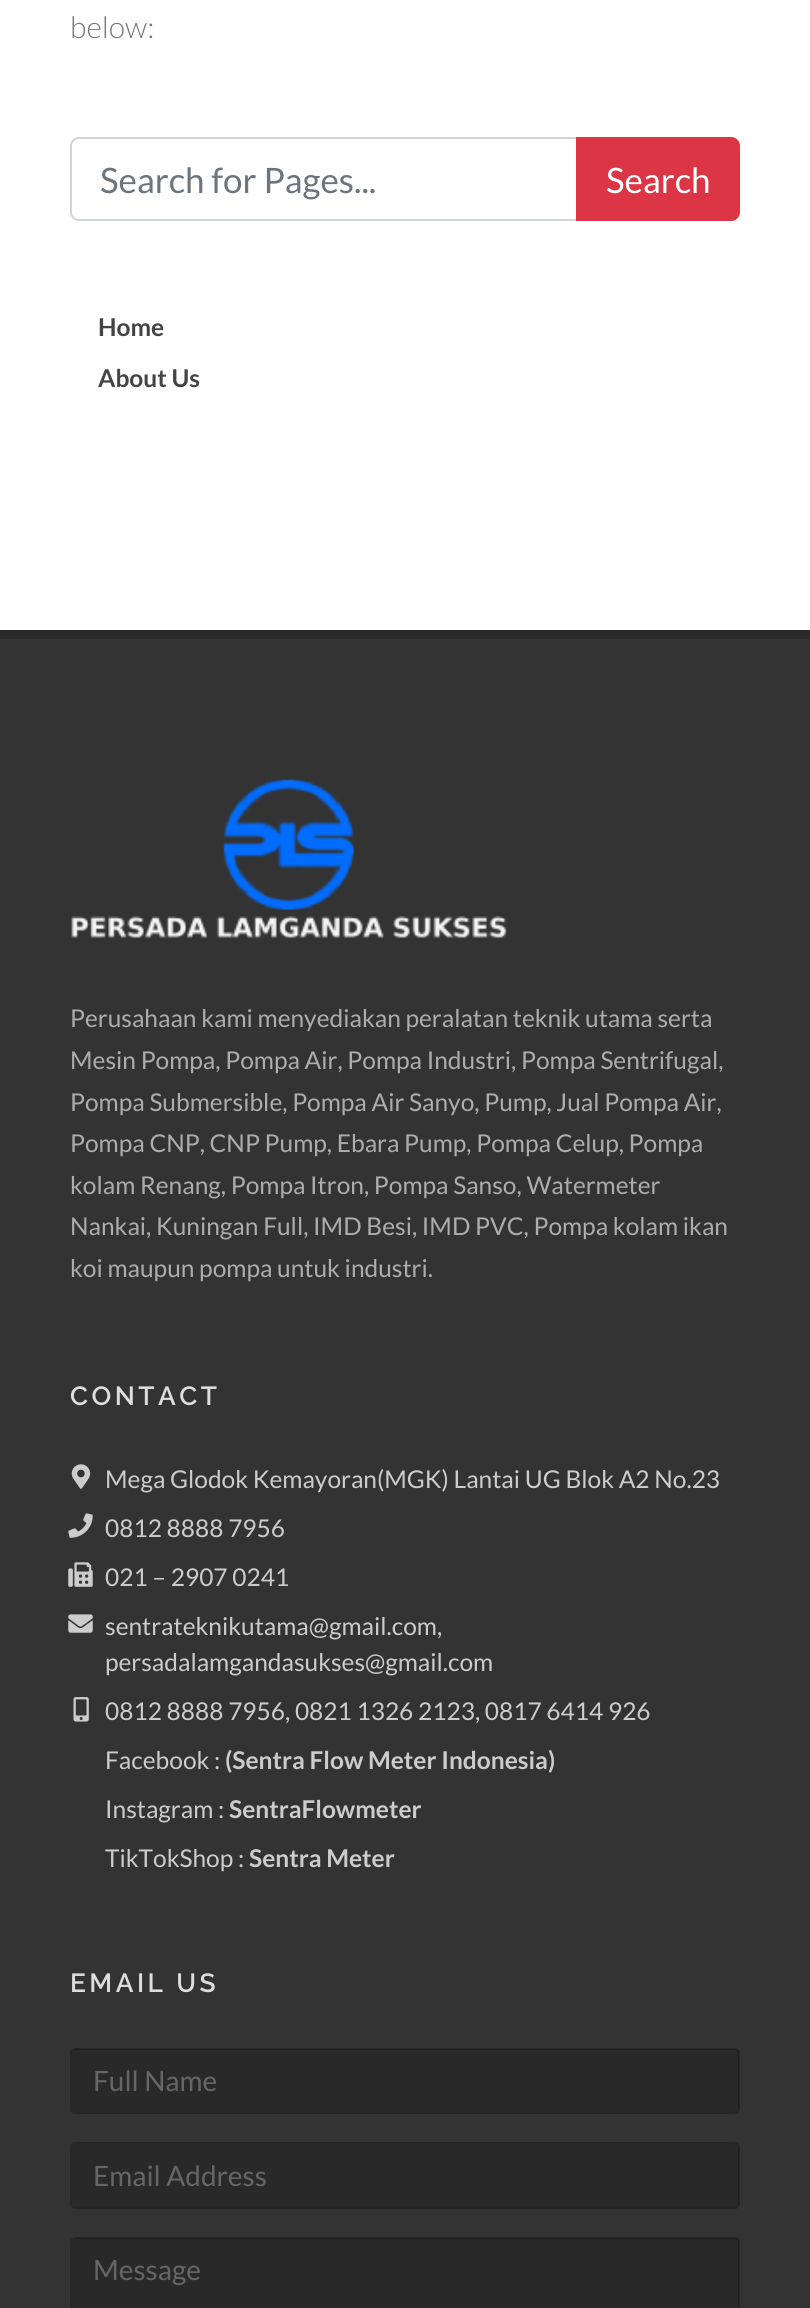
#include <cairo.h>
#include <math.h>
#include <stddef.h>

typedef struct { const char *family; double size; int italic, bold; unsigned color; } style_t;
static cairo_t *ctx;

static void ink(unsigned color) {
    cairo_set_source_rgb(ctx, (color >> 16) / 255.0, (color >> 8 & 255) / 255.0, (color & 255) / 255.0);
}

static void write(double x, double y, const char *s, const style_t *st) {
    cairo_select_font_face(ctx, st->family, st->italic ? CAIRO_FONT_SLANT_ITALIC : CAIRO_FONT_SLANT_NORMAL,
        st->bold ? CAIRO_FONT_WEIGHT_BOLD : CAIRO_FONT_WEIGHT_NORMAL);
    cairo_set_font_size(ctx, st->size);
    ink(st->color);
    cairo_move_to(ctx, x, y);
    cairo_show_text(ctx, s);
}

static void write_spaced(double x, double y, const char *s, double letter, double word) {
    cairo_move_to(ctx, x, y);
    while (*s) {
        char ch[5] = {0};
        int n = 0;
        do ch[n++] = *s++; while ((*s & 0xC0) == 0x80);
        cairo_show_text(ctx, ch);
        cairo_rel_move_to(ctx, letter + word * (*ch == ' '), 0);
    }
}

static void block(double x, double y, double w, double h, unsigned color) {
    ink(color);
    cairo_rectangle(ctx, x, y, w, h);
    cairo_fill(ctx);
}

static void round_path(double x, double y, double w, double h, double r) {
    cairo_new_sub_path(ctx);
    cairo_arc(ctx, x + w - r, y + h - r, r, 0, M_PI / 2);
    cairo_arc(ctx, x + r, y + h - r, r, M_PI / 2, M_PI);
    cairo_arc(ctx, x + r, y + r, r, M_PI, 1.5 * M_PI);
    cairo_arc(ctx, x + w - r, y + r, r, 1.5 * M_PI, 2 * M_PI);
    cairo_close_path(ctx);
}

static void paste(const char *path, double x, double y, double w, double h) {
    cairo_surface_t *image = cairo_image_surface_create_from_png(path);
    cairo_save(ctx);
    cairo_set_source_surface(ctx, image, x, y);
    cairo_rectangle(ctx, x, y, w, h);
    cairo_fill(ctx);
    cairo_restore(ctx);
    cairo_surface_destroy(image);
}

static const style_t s1 = {"Lato Light", 30, 0, 0, 0x777777};
static const style_t s2 = {"Lato", 35, 0, 0, 0x6c757d};
static const style_t s3 = {"Lato", 35, 0, 0, 0xffffff};
static const style_t s4 = {"Lato", 24.5, 0, 1, 0x444444};
static const style_t s5 = {"Lato", 24.5, 0, 0, 0xadadad};
static const style_t s6 = {"Lato", 24.5, 0, 0, 0xcccccc};
static const style_t s7 = {"Lato", 24.5, 0, 1, 0xcccccc};
static const style_t s8 = {"Lato", 28, 0, 0, 0x666666};

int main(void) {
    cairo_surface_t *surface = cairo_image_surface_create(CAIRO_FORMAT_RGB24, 810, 2308);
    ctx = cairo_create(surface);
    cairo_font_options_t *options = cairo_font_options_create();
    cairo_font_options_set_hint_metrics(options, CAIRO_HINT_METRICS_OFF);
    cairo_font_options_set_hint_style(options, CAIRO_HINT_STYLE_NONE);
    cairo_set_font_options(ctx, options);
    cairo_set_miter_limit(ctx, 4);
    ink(0xffffff);
    cairo_paint(ctx);
    write(70, 38, "below:", &s1);
    cairo_new_path(ctx);
    cairo_move_to(ctx, 79, 138);
    cairo_line_to(ctx, 577, 138);
    cairo_line_to(ctx, 577, 220);
    cairo_line_to(ctx, 79, 220);
    cairo_curve_to(ctx, 74.5, 220, 71, 216.5, 71, 212);
    cairo_line_to(ctx, 71, 146);
    cairo_curve_to(ctx, 71, 141.5, 74.5, 138, 79, 138);
    cairo_close_path(ctx);
    ink(0xced4da);
    cairo_stroke(ctx);
    write(100, 193, "Search for Pages...", &s2);
    ink(0xdc3545);
    cairo_new_path(ctx);
    cairo_move_to(ctx, 577, 138);
    cairo_line_to(ctx, 731, 138);
    cairo_curve_to(ctx, 735.5, 138, 739, 141.5, 739, 146);
    cairo_line_to(ctx, 739, 212);
    cairo_curve_to(ctx, 739, 216.5, 735.5, 220, 731, 220);
    cairo_line_to(ctx, 577, 220);
    cairo_close_path(ctx);
    cairo_fill_preserve(ctx);
    cairo_stroke(ctx);
    write(606, 193, "Search", &s3);
    write(98, 336, "Home", &s4);
    write(98, 387, "About Us", &s4);
    block(0, 639, 810, 1669, 0x333333);
    block(0, 630, 810, 9, 0x292929);
    paste("pic1.png", 71, 779, 436, 159);
    write(70, 1027, "Perusahaan kami menyediakan peralatan teknik utama serta", &s5);
    write(70, 1069, "Mesin Pompa, Pompa Air, Pompa Industri, Pompa Sentrifugal,", &s5);
    write(70, 1111, "Pompa Submersible, Pompa Air Sanyo, Pump, Jual Pompa Air,", &s5);
    write(70, 1152, "Pompa CNP, CNP Pump, Ebara Pump, Pompa Celup, Pompa", &s5);
    write(70, 1194, "kolam Renang, Pompa Itron, Pompa Sanso, Watermeter", &s5);
    write(70, 1235, "Nankai, Kuningan Full, IMD Besi, IMD PVC, Pompa kolam ikan", &s5);
    write(70, 1277, "koi maupun pompa untuk industri.", &s5);
    cairo_select_font_face(ctx, "Raleway SemiBold", CAIRO_FONT_SLANT_NORMAL, CAIRO_FONT_WEIGHT_NORMAL);
    cairo_set_font_size(ctx, 26.25);
    ink(0xdddddd);
    write_spaced(70, 1405, "CONTACT", 3.5, 0);
    paste("pic2.png", 71, 1464, 20, 25);
    write(105, 1488, "Mega Glodok Kemayoran(MGK) Lantai UG Blok A2 No.23", &s6);
    paste("pic3.png", 68, 1513, 25, 25);
    write(105, 1537, "0812 8888 7956", &s6);
    paste("pic4.png", 68, 1562, 25, 25);
    write(105, 1586, "021 – 2907 0241", &s6);
    paste("pic5.png", 68, 1614, 25, 19);
    write(105, 1635, "sentrateknikutama@gmail.com,", &s6);
    write(105, 1671, "persadalamgandasukses@gmail.com", &s6);
    paste("pic6.png", 73, 1697, 16, 25);
    write(105, 1720, "0812 8888 7956, 0821 1326 2123, 0817 6414 926", &s6);
    write(105, 1769, "Facebook :", &s6);
    write(225, 1769, "(Sentra Flow Meter Indonesia)", &s7);
    write(105, 1818, "Instagram :", &s6);
    write(229, 1818, "SentraFlowmeter", &s7);
    write(105, 1867, "TikTokShop :", &s6);
    write(249, 1867, "Sentra Meter", &s7);
    cairo_select_font_face(ctx, "Raleway SemiBold", CAIRO_FONT_SLANT_NORMAL, CAIRO_FONT_WEIGHT_NORMAL);
    cairo_set_font_size(ctx, 26.25);
    ink(0xdddddd);
    write_spaced(70, 1992, "EMAIL US", 3.5, 0);
    ink(0x292929);
    round_path(72, 2049, 667, 63, 4);
    cairo_fill(ctx);
    round_path(71, 2049, 668, 64, 4);
    cairo_set_source_rgba(ctx, 0, 0, 0, 0.25);
    cairo_stroke(ctx);
    write(93, 2091, "Full Name", &s8);
    ink(0x292929);
    round_path(72, 2144, 667, 63, 4);
    cairo_fill(ctx);
    round_path(71, 2143, 668, 65, 4);
    cairo_set_source_rgba(ctx, 0, 0, 0, 0.25);
    cairo_stroke(ctx);
    write(93, 2186, "Email Address", &s8);
    ink(0x292929);
    round_path(72, 2238, 667, 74, 4);
    cairo_fill(ctx);
    round_path(71, 2238, 668, 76, 4);
    cairo_set_source_rgba(ctx, 0, 0, 0, 0.25);
    cairo_stroke(ctx);
    write(93, 2280, "Message", &s8);
    cairo_surface_write_to_png(surface, "screenshot.png");
    cairo_font_options_destroy(options);
    cairo_destroy(ctx);
    cairo_surface_destroy(surface);
    return 0;
}
